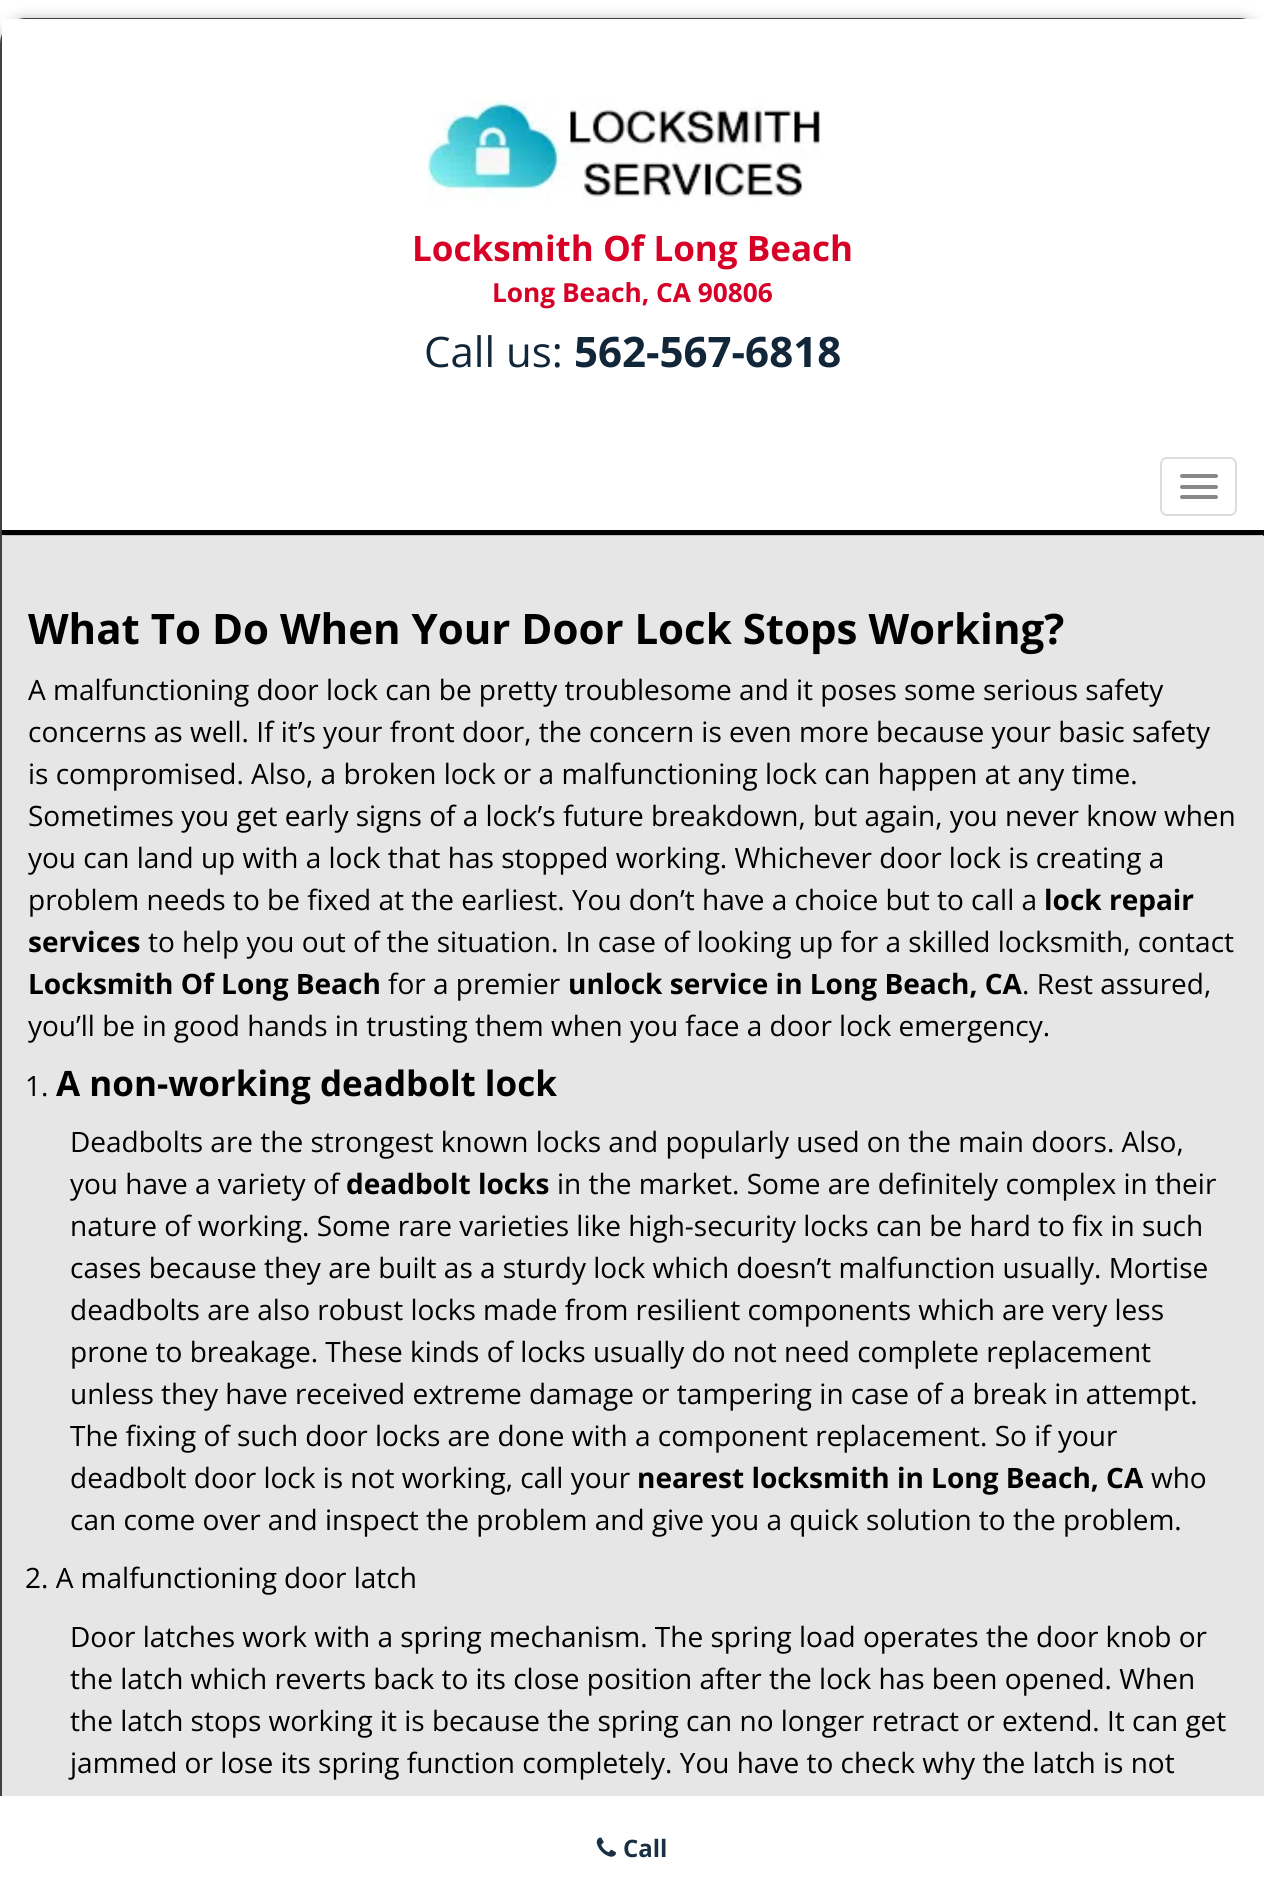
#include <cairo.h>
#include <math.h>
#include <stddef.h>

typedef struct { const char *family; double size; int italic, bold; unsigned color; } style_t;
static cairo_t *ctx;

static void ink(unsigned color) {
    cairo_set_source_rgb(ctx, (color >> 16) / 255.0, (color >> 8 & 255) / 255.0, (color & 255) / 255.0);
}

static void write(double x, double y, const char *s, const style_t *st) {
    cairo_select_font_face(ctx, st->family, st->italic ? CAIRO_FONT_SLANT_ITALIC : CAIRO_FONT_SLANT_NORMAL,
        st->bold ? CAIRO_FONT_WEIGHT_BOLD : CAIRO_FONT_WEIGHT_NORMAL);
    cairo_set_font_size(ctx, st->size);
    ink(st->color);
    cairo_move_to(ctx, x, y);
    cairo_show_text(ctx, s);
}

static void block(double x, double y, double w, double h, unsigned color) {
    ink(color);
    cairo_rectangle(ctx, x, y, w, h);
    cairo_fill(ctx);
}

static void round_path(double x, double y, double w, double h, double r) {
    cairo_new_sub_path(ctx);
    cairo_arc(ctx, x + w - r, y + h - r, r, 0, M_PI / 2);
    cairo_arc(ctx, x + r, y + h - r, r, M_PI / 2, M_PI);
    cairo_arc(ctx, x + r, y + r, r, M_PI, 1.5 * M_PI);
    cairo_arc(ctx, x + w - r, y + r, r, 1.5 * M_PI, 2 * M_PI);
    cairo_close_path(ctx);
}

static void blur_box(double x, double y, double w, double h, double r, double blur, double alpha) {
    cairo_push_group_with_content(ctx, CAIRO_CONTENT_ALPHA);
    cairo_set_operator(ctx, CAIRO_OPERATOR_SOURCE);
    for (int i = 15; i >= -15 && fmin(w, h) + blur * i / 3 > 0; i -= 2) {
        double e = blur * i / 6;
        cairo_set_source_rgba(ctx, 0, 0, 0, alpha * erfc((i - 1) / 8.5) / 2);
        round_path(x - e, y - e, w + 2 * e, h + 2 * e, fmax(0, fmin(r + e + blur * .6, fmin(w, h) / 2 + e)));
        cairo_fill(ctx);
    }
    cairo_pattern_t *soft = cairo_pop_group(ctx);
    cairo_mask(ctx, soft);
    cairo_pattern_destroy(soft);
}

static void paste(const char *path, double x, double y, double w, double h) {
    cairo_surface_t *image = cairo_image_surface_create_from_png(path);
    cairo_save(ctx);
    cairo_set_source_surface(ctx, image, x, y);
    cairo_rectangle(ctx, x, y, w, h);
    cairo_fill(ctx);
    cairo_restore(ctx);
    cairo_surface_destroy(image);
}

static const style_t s1 = {"Open Sans", 35, 0, 1, 0xd70026};
static const style_t s2 = {"Open Sans", 26.25, 0, 1, 0xd70026};
static const style_t s3 = {"Open Sans", 42, 0, 0, 0x112639};
static const style_t s4 = {"Open Sans", 42, 0, 1, 0x112639};
static const style_t s5 = {"Open Sans", 42, 0, 1, 0x000000};
static const style_t s6 = {"Open Sans", 28, 0, 0, 0x000000};
static const style_t s7 = {"Open Sans", 28, 0, 1, 0x000000};
static const style_t s8 = {"Open Sans", 35, 0, 1, 0x000000};
static const style_t s9 = {"Open Sans", 24, 0, 1, 0x192f43};

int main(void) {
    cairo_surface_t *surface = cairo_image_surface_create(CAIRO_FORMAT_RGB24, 1264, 1898);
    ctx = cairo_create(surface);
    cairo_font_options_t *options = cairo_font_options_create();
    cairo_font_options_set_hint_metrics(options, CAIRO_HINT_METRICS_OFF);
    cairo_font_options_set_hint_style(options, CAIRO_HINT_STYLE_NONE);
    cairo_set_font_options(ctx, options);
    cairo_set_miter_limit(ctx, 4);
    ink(0xffffff);
    cairo_paint(ctx);
    ink(0xbfbfbf);
    blur_box(0, 18, 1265, 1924, 26, 6, 1);
    cairo_new_path(ctx);
    cairo_move_to(ctx, 26, 19);
    cairo_line_to(ctx, 1239, 19);
    cairo_curve_to(ctx, 1253, 19, 1264, 30, 1264, 44);
    cairo_line_to(ctx, 1264, 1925);
    cairo_line_to(ctx, 1, 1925);
    cairo_line_to(ctx, 1, 44);
    cairo_curve_to(ctx, 1, 30, 12, 19, 26, 19);
    cairo_close_path(ctx);
    ink(0x414141);
    cairo_stroke(ctx);
    block(2, 19, 1262, 511, 0xffffff);
    paste("pic1.png", 427, 99, 393, 105);
    write(412, 261, "Locksmith Of Long Beach", &s1);
    write(492, 302, "Long Beach, CA 90806", &s2);
    write(424, 367, "Call us:", &s3);
    write(574, 367, "562-567-6818", &s4);
    block(2, 530, 1262, 5, 0x000000);
    round_path(1161, 458, 75, 57, 6);
    ink(0xdddddd);
    cairo_stroke(ctx);
    ink(0x888888);
    round_path(1180, 474, 38, 4, 2);
    cairo_fill(ctx);
    round_path(1180, 485, 38, 4, 2);
    cairo_fill(ctx);
    round_path(1180, 495, 38, 4, 2);
    cairo_fill(ctx);
    block(2, 536, 1262, 1260, 0xe6e6e6);
    write(28, 644, "What To Do When Your Door Lock Stops Working?", &s5);
    write(28, 700, "A malfunctioning door lock can be pretty troublesome and it poses some serious safety", &s6);
    write(28, 742, "concerns as well. If it’s your front door, the concern is even more because your basic safety", &s6);
    write(28, 784, "is compromised. Also, a broken lock or a malfunctioning lock can happen at any time.", &s6);
    write(28, 826, "Sometimes you get early signs of a lock’s future breakdown, but again, you never know when", &s6);
    write(28, 868, "you can land up with a lock that has stopped working. Whichever door lock is creating a", &s6);
    write(28, 910, "problem needs to be fixed at the earliest. You don’t have a choice but to call a", &s6);
    write(1044, 910, "lock repair", &s7);
    write(28, 952, "services", &s7);
    write(148, 952, "to help you out of the situation. In case of looking up for a skilled locksmith, contact", &s6);
    write(28, 994, "Locksmith Of Long Beach", &s7);
    write(388, 994, "for a premier", &s6);
    write(568, 994, "unlock service in Long Beach, CA", &s7);
    write(1022, 994, ". Rest assured,", &s6);
    write(28, 1036, "you’ll be in good hands in trusting them when you face a door lock emergency.", &s6);
    write(25, 1096, "1.", &s6);
    write(56, 1096, "A non-working deadbolt lock", &s8);
    write(70, 1152, "Deadbolts are the strongest known locks and popularly used on the main doors. Also,", &s6);
    write(70, 1194, "you have a variety of", &s6);
    write(346, 1194, "deadbolt locks", &s7);
    write(557, 1194, "in the market. Some are definitely complex in their", &s6);
    write(70, 1236, "nature of working. Some rare varieties like high-security locks can be hard to fix in such", &s6);
    write(70, 1278, "cases because they are built as a sturdy lock which doesn’t malfunction usually. Mortise", &s6);
    write(70, 1320, "deadbolts are also robust locks made from resilient components which are very less", &s6);
    write(70, 1362, "prone to breakage. These kinds of locks usually do not need complete replacement", &s6);
    write(70, 1404, "unless they have received extreme damage or tampering in case of a break in attempt.", &s6);
    write(70, 1446, "The fixing of such door locks are done with a component replacement. So if your", &s6);
    write(70, 1488, "deadbolt door lock is not working, call your", &s6);
    write(637, 1488, "nearest locksmith in Long Beach, CA", &s7);
    write(1151, 1488, "who", &s6);
    write(70, 1530, "can come over and inspect the problem and give you a quick solution to the problem.", &s6);
    write(25, 1588, "2. A malfunctioning door latch", &s6);
    write(70, 1647, "Door latches work with a spring mechanism. The spring load operates the door knob or", &s6);
    write(70, 1689, "the latch which reverts back to its close position after the lock has been opened. When", &s6);
    write(70, 1731, "the latch stops working it is because the spring can no longer retract or extend. It can get", &s6);
    write(70, 1773, "jammed or lose its spring function completely. You have to check why the latch is not", &s6);
    block(0, 1796, 1264, 102, 0xffffff);
    paste("pic2.png", 596, 1837, 20, 20);
    write(623, 1857, "Call", &s9);
    cairo_surface_write_to_png(surface, "screenshot.png");
    cairo_font_options_destroy(options);
    cairo_destroy(ctx);
    cairo_surface_destroy(surface);
    return 0;
}
